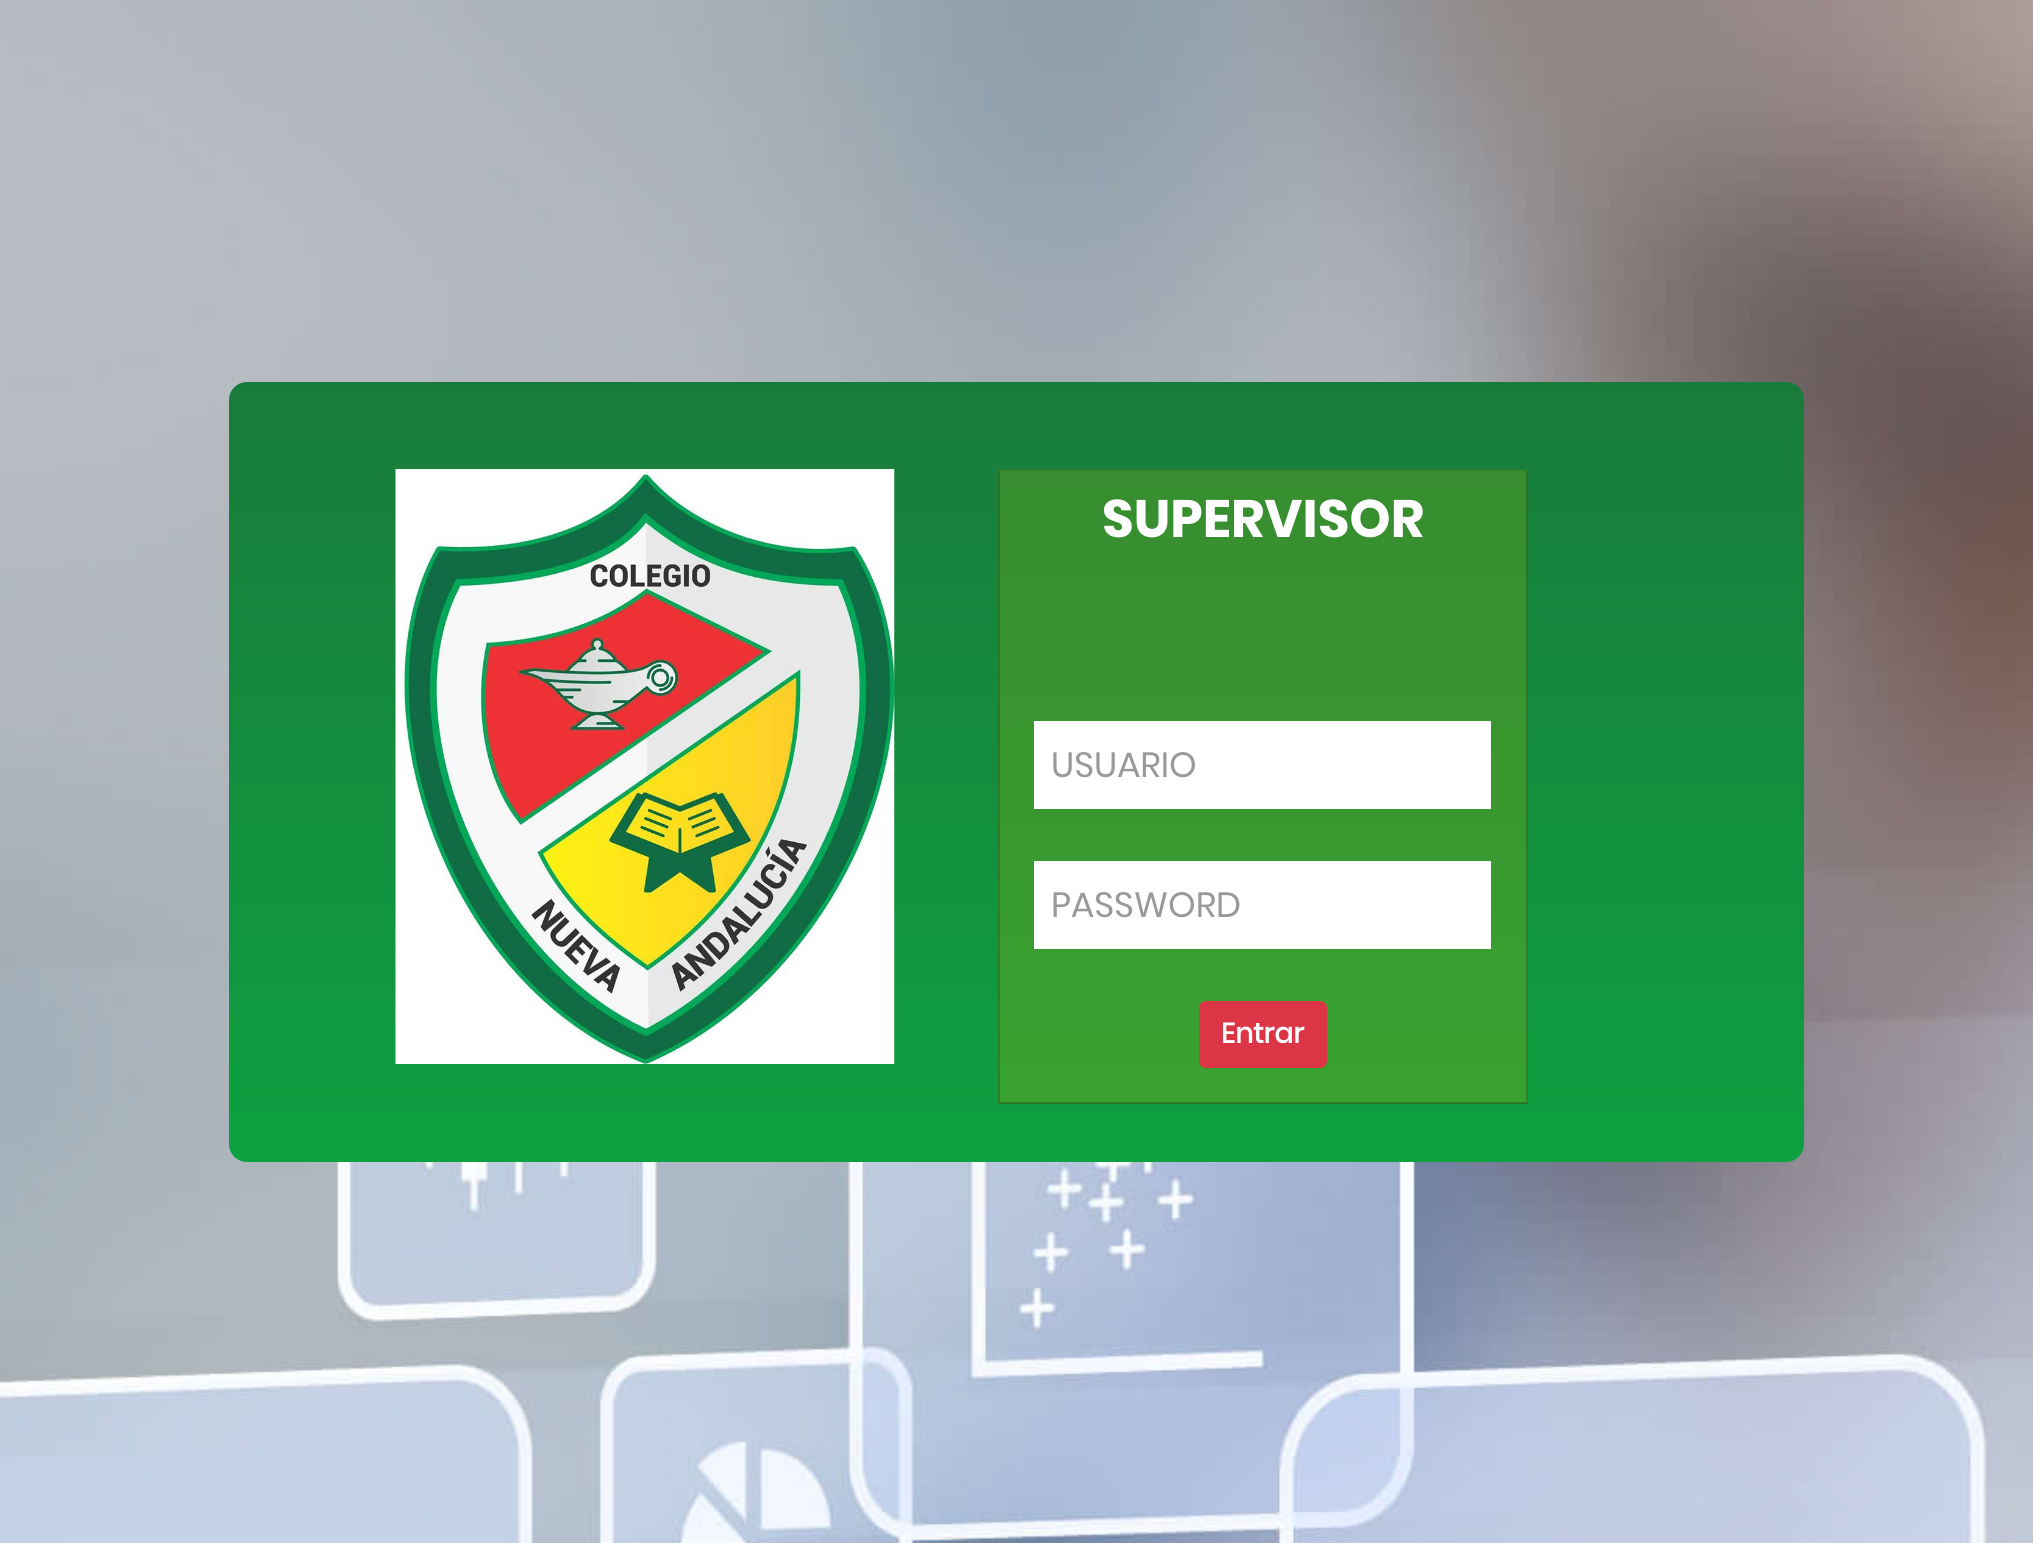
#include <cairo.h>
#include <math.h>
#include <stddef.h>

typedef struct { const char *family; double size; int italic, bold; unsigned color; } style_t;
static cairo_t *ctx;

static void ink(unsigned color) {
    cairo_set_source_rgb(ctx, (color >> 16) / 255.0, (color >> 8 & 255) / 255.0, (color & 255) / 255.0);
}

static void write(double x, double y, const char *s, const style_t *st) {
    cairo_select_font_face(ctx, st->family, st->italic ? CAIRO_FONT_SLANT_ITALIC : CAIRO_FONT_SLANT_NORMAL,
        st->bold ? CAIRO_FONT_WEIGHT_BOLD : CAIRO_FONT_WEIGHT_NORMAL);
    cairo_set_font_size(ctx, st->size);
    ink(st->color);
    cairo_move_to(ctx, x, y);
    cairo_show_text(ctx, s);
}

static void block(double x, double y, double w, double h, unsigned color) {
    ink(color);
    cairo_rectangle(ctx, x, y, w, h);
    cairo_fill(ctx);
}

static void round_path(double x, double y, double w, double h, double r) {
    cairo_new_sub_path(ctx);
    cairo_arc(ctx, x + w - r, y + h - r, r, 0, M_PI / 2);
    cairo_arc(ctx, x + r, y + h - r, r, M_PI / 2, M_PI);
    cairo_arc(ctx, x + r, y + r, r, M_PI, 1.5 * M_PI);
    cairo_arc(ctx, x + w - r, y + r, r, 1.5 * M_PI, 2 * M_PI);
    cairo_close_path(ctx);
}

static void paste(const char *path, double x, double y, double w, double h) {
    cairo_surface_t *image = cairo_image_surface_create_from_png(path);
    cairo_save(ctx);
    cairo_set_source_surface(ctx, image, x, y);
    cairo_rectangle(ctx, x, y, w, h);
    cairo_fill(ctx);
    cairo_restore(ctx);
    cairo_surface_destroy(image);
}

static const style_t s1 = {"Poppins", 52.5, 0, 1, 0xffffff};
static const style_t s2 = {"Poppins", 35, 0, 0, 0x999999};
static const style_t s3 = {"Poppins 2", 28, 0, 1, 0xffffff};

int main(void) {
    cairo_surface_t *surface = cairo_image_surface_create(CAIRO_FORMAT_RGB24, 2033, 1543);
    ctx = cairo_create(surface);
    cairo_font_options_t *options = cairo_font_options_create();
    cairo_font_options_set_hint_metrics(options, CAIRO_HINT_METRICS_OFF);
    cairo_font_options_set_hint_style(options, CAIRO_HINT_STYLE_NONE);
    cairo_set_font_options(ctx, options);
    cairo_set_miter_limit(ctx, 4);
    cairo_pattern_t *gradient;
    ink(0xffffff);
    cairo_paint(ctx);
    paste("pic1.png", 0, 0, 2033, 1543);
    gradient = cairo_pattern_create_linear(1017, 381, 1017, 1162);
    cairo_pattern_add_color_stop_rgba(gradient, 0, 0.098, 0.482, 0.231, 1);
    cairo_pattern_add_color_stop_rgba(gradient, 1, 0.051, 0.631, 0.255, 1);
    cairo_set_source(ctx, gradient);
    cairo_pattern_destroy(gradient);
    round_path(229, 382, 1575, 780, 18);
    cairo_fill(ctx);
    paste("pic2.png", 395, 469, 500, 595);
    gradient = cairo_pattern_create_linear(1263, -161, 1263, 471);
    cairo_pattern_add_color_stop_rgba(gradient, 0, 0.216, 0.553, 0.184, 1);
    cairo_pattern_add_color_stop_rgba(gradient, 1, 0.224, 0.635, 0.188, 1);
    cairo_set_source(ctx, gradient);
    cairo_pattern_destroy(gradient);
    cairo_rectangle(ctx, 998, 469, 530, 2);
    cairo_fill(ctx);
    gradient = cairo_pattern_create_linear(1263, 471, 1263, 1103);
    cairo_pattern_add_color_stop_rgba(gradient, 0, 0.216, 0.553, 0.184, 1);
    cairo_pattern_add_color_stop_rgba(gradient, 1, 0.224, 0.635, 0.188, 1);
    cairo_set_source(ctx, gradient);
    cairo_pattern_destroy(gradient);
    cairo_rectangle(ctx, 998, 471, 530, 632);
    cairo_fill(ctx);
    gradient = cairo_pattern_create_linear(1263, 1103, 1263, 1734);
    cairo_pattern_add_color_stop_rgba(gradient, 0, 0.216, 0.553, 0.184, 1);
    cairo_pattern_add_color_stop_rgba(gradient, 1, 0.224, 0.635, 0.188, 1);
    cairo_set_source(ctx, gradient);
    cairo_pattern_destroy(gradient);
    cairo_rectangle(ctx, 998, 1103, 530, 1);
    cairo_fill(ctx);
    cairo_rectangle(ctx, 999, 470, 528, 633);
    cairo_set_source_rgba(ctx, 0, 0, 0, 0.2);
    cairo_stroke(ctx);
    write(1102, 537, "SUPERVISOR", &s1);
    block(1034, 721, 457, 88, 0xffffff);
    write(1051, 777, "USUARIO", &s2);
    block(1034, 861, 457, 88, 0xffffff);
    write(1051, 917, "PASSWORD", &s2);
    ink(0xdc3545);
    round_path(1200, 1002, 126, 65, 6);
    cairo_fill_preserve(ctx);
    cairo_stroke(ctx);
    write(1221, 1043, "Entrar", &s3);
    cairo_surface_write_to_png(surface, "screenshot.png");
    cairo_font_options_destroy(options);
    cairo_destroy(ctx);
    cairo_surface_destroy(surface);
    return 0;
}
